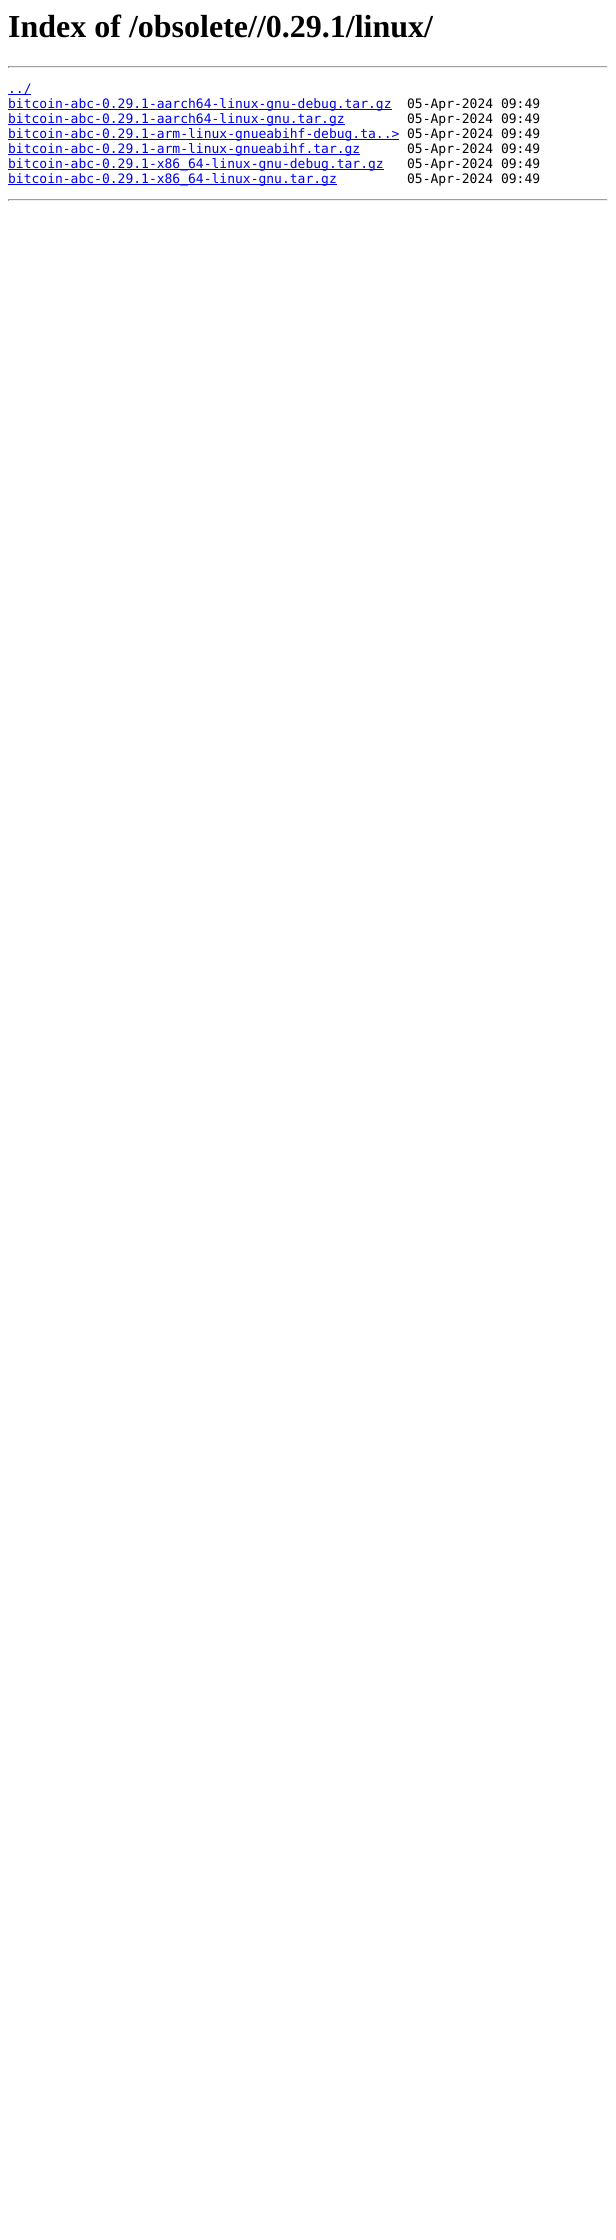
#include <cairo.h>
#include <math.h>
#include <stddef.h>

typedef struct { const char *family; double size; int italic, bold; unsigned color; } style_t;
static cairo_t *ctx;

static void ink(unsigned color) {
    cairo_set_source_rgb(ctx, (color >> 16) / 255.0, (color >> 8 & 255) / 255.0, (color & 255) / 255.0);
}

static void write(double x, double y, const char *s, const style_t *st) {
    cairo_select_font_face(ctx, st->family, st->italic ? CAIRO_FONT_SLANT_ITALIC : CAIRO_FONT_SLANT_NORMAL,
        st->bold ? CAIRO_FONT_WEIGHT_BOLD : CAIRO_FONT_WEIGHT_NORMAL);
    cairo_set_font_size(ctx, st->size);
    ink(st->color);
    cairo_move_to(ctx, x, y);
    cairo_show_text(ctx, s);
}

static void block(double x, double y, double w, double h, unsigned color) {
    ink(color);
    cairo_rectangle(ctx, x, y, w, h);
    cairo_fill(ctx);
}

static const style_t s1 = {"Liberation Serif", 32, 0, 1, 0x000000};
static const style_t s2 = {"DejaVu Sans Mono", 13, 0, 0, 0x0000ee};
static const style_t s3 = {"DejaVu Sans Mono", 13, 0, 0, 0x000000};

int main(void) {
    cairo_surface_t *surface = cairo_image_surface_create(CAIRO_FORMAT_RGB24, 616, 2240);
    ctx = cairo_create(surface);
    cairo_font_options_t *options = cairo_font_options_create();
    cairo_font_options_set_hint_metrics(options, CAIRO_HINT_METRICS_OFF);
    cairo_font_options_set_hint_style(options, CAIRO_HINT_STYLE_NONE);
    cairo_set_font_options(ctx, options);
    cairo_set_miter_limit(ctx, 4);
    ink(0xffffff);
    cairo_paint(ctx);
    write(8, 37, "Index of /obsolete//0.29.1/linux/", &s1);
    block(8, 66, 600, 1, 0x9f9f9f);
    block(607, 66, 1, 2, 0xeeeeee);
    block(8, 67, 600, 1, 0xeeeeee);
    block(8, 66, 1, 2, 0x9f9f9f);
    block(8, 94, 23, 1, 0x0000ee);
    write(8, 93, "../", &s2);
    block(8, 109, 384, 1, 0x0000ee);
    write(8, 108, "bitcoin-abc-0.29.1-aarch64-linux-gnu-debug.tar.gz", &s2);
    write(407, 108, "05-Apr-2024 09:49", &s3);
    block(8, 124, 337, 1, 0x0000ee);
    write(8, 123, "bitcoin-abc-0.29.1-aarch64-linux-gnu.tar.gz", &s2);
    write(407, 123, "05-Apr-2024 09:49", &s3);
    block(8, 139, 391, 1, 0x0000ee);
    write(8, 138, "bitcoin-abc-0.29.1-arm-linux-gnueabihf-debug.ta..>", &s2);
    write(407, 138, "05-Apr-2024 09:49", &s3);
    block(8, 154, 352, 1, 0x0000ee);
    write(8, 153, "bitcoin-abc-0.29.1-arm-linux-gnueabihf.tar.gz", &s2);
    write(407, 153, "05-Apr-2024 09:49", &s3);
    block(8, 169, 376, 1, 0x0000ee);
    write(8, 168, "bitcoin-abc-0.29.1-x86_64-linux-gnu-debug.tar.gz", &s2);
    write(407, 168, "05-Apr-2024 09:49", &s3);
    block(8, 184, 329, 1, 0x0000ee);
    write(8, 183, "bitcoin-abc-0.29.1-x86_64-linux-gnu.tar.gz", &s2);
    write(407, 183, "05-Apr-2024 09:49", &s3);
    block(8, 199, 600, 1, 0x9f9f9f);
    block(607, 199, 1, 2, 0xeeeeee);
    block(8, 200, 600, 1, 0xeeeeee);
    block(8, 199, 1, 2, 0x9f9f9f);
    cairo_surface_write_to_png(surface, "screenshot.png");
    cairo_font_options_destroy(options);
    cairo_destroy(ctx);
    cairo_surface_destroy(surface);
    return 0;
}
